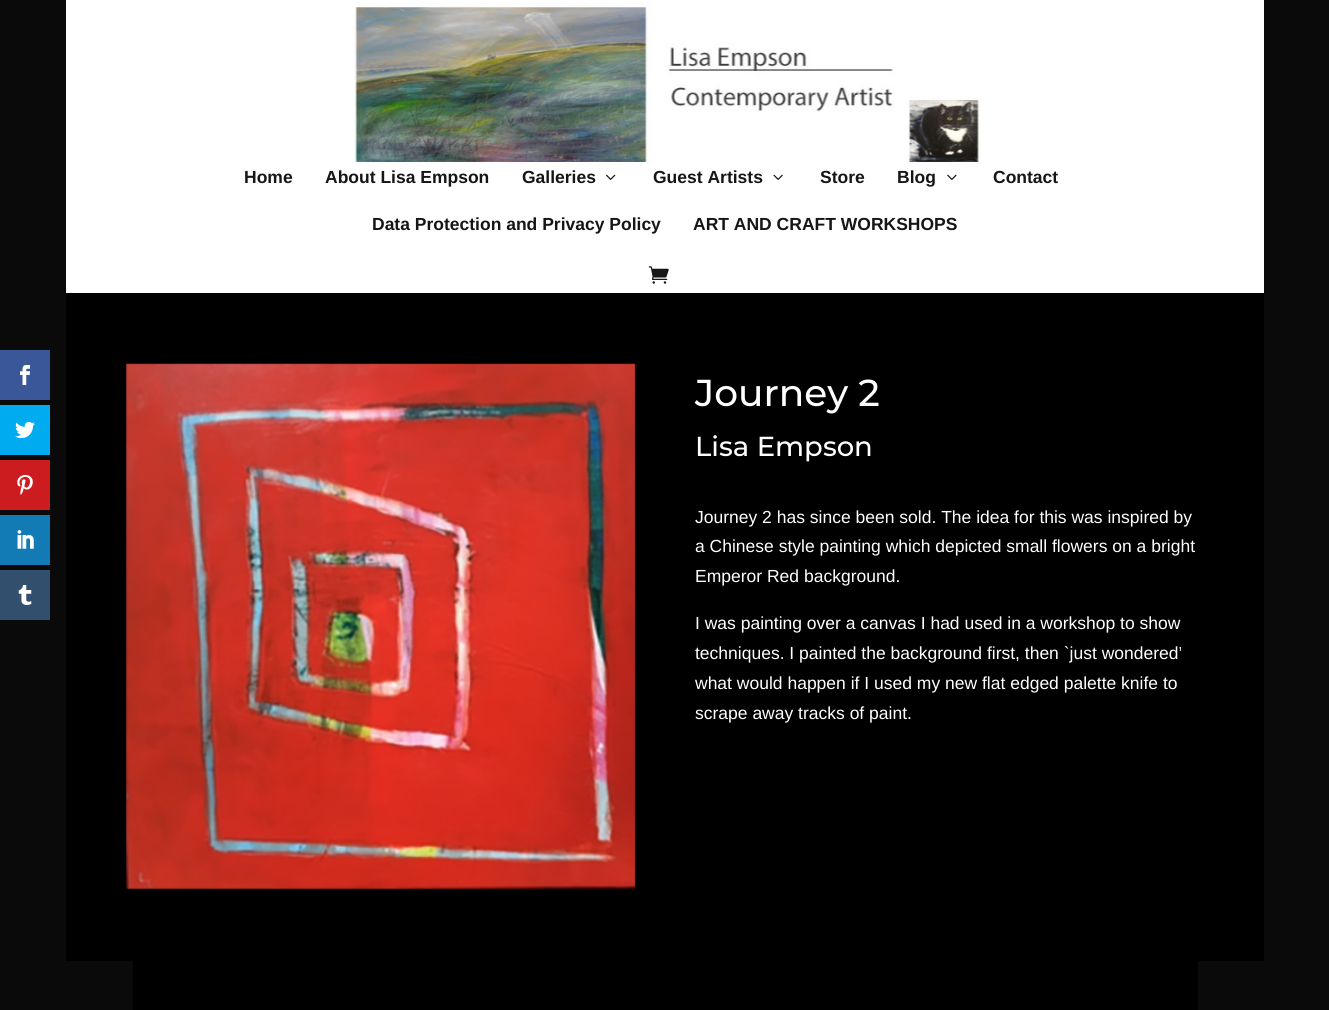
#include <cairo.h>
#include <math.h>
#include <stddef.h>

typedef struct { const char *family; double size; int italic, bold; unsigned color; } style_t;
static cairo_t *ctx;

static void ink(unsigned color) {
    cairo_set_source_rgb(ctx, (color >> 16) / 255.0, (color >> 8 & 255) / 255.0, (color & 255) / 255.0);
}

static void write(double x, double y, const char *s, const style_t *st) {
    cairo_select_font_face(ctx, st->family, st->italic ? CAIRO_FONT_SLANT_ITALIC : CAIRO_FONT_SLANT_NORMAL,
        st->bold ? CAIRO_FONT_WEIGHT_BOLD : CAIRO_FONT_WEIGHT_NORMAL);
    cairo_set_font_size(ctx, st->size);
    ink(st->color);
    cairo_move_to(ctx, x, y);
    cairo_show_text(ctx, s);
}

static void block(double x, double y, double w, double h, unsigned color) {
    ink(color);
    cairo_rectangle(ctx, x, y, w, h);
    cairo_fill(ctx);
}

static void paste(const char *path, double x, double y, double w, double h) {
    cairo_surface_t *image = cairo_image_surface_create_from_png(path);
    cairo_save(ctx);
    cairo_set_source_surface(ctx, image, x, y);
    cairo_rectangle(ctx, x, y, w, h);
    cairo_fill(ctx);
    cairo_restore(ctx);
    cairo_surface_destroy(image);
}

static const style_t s1 = {"Liberation Sans", 17.5, 0, 1, 0x161616};
static const style_t s2 = {"Montserrat Medium", 37.5, 0, 0, 0xffffff};
static const style_t s3 = {"Montserrat Medium", 27.5, 0, 0, 0xffffff};
static const style_t s4 = {"Liberation Sans", 17.5, 0, 0, 0xffffff};

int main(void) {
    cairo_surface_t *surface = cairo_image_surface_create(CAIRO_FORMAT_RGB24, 1329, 1010);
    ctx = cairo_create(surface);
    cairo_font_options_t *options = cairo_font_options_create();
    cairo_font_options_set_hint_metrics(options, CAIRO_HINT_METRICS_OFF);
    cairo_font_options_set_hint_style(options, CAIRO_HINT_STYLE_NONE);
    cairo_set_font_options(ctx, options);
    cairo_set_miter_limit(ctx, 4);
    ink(0x0a0a0a);
    cairo_paint(ctx);
    block(0, 350, 50, 50, 0x3a579a);
    paste("pic1.png", 20, 365, 10, 20);
    block(0, 405, 50, 50, 0x00abf0);
    paste("pic2.png", 15, 421, 20, 18);
    block(0, 460, 50, 50, 0xcd1c1f);
    paste("pic3.png", 17, 475, 16, 20);
    block(0, 515, 50, 50, 0x127bb6);
    paste("pic4.png", 17, 530, 17, 19);
    block(0, 570, 50, 50, 0x32506d);
    paste("pic5.png", 18, 585, 14, 20);
    block(66, 0, 1198, 293, 0xffffff);
    paste("pic6.png", 354, 1, 628, 165);
    write(244, 183, "Home", &s1);
    write(325, 183, "About Lisa Empson", &s1);
    write(522, 183, "Galleries", &s1);
    paste("pic7.png", 606, 174, 10, 6);
    write(653, 183, "Guest Artists", &s1);
    paste("pic8.png", 773, 174, 10, 6);
    write(820, 183, "Store", &s1);
    write(897, 183, "Blog", &s1);
    paste("pic9.png", 947, 174, 10, 6);
    write(993, 183, "Contact", &s1);
    write(372, 230, "Data Protection and Privacy Policy", &s1);
    write(693, 230, "ART AND CRAFT WORKSHOPS", &s1);
    paste("pic10.png", 648, 266, 21, 18);
    block(66, 293, 1198, 668, 0x000000);
    paste("pic11.png", 126, 363, 509, 526);
    write(695, 406, "Journey 2", &s2);
    write(695, 456, "Lisa Empson", &s3);
    write(695, 523, "Journey 2 has since been sold. The idea for this was inspired by", &s4);
    write(695, 552, "a Chinese style painting which depicted small flowers on a bright", &s4);
    write(695, 582, "Emperor Red background.", &s4);
    write(695, 629, "I was painting over a canvas I had used in a workshop to show", &s4);
    write(695, 659, "techniques. I painted the background first, then `just wondered’", &s4);
    write(695, 689, "what would happen if I used my new flat edged palette knife to", &s4);
    write(695, 719, "scrape away tracks of paint.", &s4);
    block(133, 961, 1065, 49, 0x000000);
    cairo_surface_write_to_png(surface, "screenshot.png");
    cairo_font_options_destroy(options);
    cairo_destroy(ctx);
    cairo_surface_destroy(surface);
    return 0;
}
